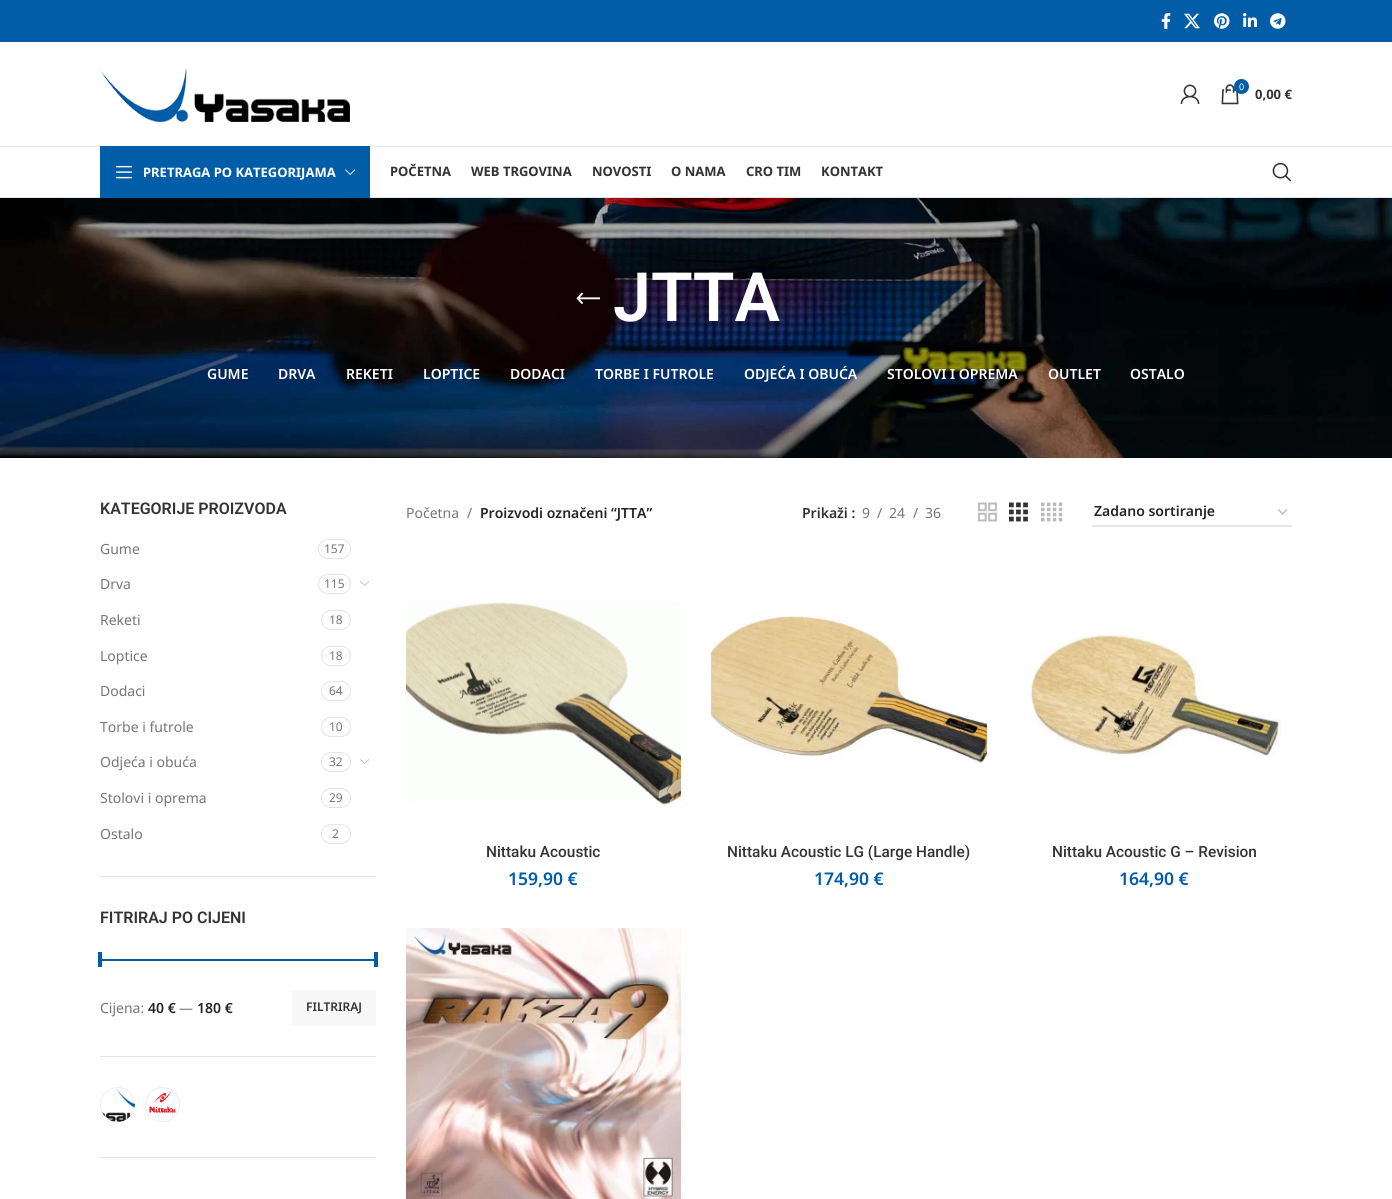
#include <cairo.h>
#include <math.h>
#include <stddef.h>

typedef struct { const char *family; double size; int italic, bold; unsigned color; } style_t;
static cairo_t *ctx;

static void ink(unsigned color) {
    cairo_set_source_rgb(ctx, (color >> 16) / 255.0, (color >> 8 & 255) / 255.0, (color & 255) / 255.0);
}

static void write(double x, double y, const char *s, const style_t *st) {
    cairo_select_font_face(ctx, st->family, st->italic ? CAIRO_FONT_SLANT_ITALIC : CAIRO_FONT_SLANT_NORMAL,
        st->bold ? CAIRO_FONT_WEIGHT_BOLD : CAIRO_FONT_WEIGHT_NORMAL);
    cairo_set_font_size(ctx, st->size);
    ink(st->color);
    cairo_move_to(ctx, x, y);
    cairo_show_text(ctx, s);
}

static void block(double x, double y, double w, double h, unsigned color) {
    ink(color);
    cairo_rectangle(ctx, x, y, w, h);
    cairo_fill(ctx);
}

static void round_path(double x, double y, double w, double h, double r) {
    cairo_new_sub_path(ctx);
    cairo_arc(ctx, x + w - r, y + h - r, r, 0, M_PI / 2);
    cairo_arc(ctx, x + r, y + h - r, r, M_PI / 2, M_PI);
    cairo_arc(ctx, x + r, y + r, r, M_PI, 1.5 * M_PI);
    cairo_arc(ctx, x + w - r, y + r, r, 1.5 * M_PI, 2 * M_PI);
    cairo_close_path(ctx);
}

static void paste(const char *path, double x, double y, double w, double h) {
    cairo_surface_t *image = cairo_image_surface_create_from_png(path);
    cairo_save(ctx);
    cairo_set_source_surface(ctx, image, x, y);
    cairo_rectangle(ctx, x, y, w, h);
    cairo_fill(ctx);
    cairo_restore(ctx);
    cairo_surface_destroy(image);
}

static const style_t s1 = {"Noto Sans", 9, 0, 0, 0xffffff};
static const style_t s2 = {"Noto Sans", 13, 0, 1, 0x333333};
static const style_t s3 = {"Noto Sans", 13, 0, 1, 0xffffff};
static const style_t s4 = {"Roboto SemiBold", 68, 0, 0, 0xffffff};
static const style_t s5 = {"Noto Sans SemiBold", 14, 0, 0, 0xffffff};
static const style_t s6 = {"Roboto SemiBold", 16, 0, 0, 0x333333};
static const style_t s7 = {"Noto Sans", 14, 0, 0, 0x767676};
static const style_t s8 = {"Noto Sans", 12, 0, 0, 0x767676};
static const style_t s9 = {"Noto Sans SemiBold", 14, 0, 0, 0x242424};
static const style_t s10 = {"Noto Sans SemiBold", 12, 0, 0, 0x333333};
static const style_t s11 = {"Noto Sans SemiBold", 14, 0, 0, 0x333333};
static const style_t s12 = {"Roboto Medium", 15.4, 0, 0, 0x333333};
static const style_t s13 = {"Noto Sans SemiBold", 17.5, 0, 0, 0x015da8};

int main(void) {
    cairo_surface_t *surface = cairo_image_surface_create(CAIRO_FORMAT_RGB24, 1392, 1199);
    ctx = cairo_create(surface);
    cairo_font_options_t *options = cairo_font_options_create();
    cairo_font_options_set_hint_metrics(options, CAIRO_HINT_METRICS_OFF);
    cairo_font_options_set_hint_style(options, CAIRO_HINT_STYLE_NONE);
    cairo_set_font_options(ctx, options);
    cairo_set_miter_limit(ctx, 4);
    ink(0xffffff);
    cairo_paint(ctx);
    block(0, 0, 1392, 42, 0x015da8);
    paste("pic1.png", 1161, 13, 10, 16);
    paste("pic2.png", 1184, 13, 16, 16);
    paste("pic3.png", 1214, 13, 16, 16);
    paste("pic4.png", 1243, 13, 14, 14);
    paste("pic5.png", 1270, 13, 16, 16);
    block(0, 146, 1392, 1, 0xe6e6e6);
    paste("pic6.png", 100, 67, 250, 55);
    paste("pic7.png", 1180, 84, 20, 20);
    paste("pic8.png", 1221, 84, 18, 21);
    ink(0x015da8);
    cairo_arc(ctx, 1241.5, 86.5, 7.5, 0, 2 * M_PI);
    cairo_fill(ctx);
    write(1239, 90, "0", &s1);
    write(1255, 99, "0,00 €", &s2);
    block(0, 197, 1392, 1, 0xe6e6e6);
    block(100, 146, 270, 52, 0x015da8);
    paste("pic9.png", 116, 165, 16, 14);
    write(143, 177, "PRETRAGA PO KATEGORIJAMA", &s3);
    paste("pic10.png", 345, 169, 11, 6);
    write(390, 176, "POČETNA", &s2);
    write(471, 176, "WEB TRGOVINA", &s2);
    write(592, 176, "NOVOSTI", &s2);
    write(671, 176, "O NAMA", &s2);
    write(746, 176, "CRO TIM", &s2);
    write(821, 176, "KONTAKT", &s2);
    paste("pic11.png", 1272, 162, 20, 20);
    paste("pic12.png", 0, 198, 1392, 260);
    paste("pic13.png", 576, 292, 24, 13);
    write(613, 321, "JTTA", &s4);
    write(207, 379, "GUME", &s5);
    write(278, 379, "DRVA", &s5);
    write(346, 379, "REKETI", &s5);
    write(423, 379, "LOPTICE", &s5);
    write(510, 379, "DODACI", &s5);
    write(595, 379, "TORBE I FUTROLE", &s5);
    write(744, 379, "ODJEĆA I OBUĆA", &s5);
    write(887, 379, "STOLOVI I OPREMA", &s5);
    write(1048, 379, "OUTLET", &s5);
    write(1130, 379, "OSTALO", &s5);
    block(100, 876, 276, 1, 0xe4e4e4);
    write(100, 514, "KATEGORIJE PROIZVODA", &s6);
    write(100, 554, "Gume", &s7);
    round_path(318.5, 539.5, 32, 19, 9.5);
    ink(0xe4e4e4);
    cairo_set_line_width(ctx, 1);
    cairo_stroke(ctx);
    write(324, 553, "157", &s8);
    write(100, 589, "Drva", &s7);
    round_path(318.5, 574.5, 32, 19, 9.5);
    ink(0xe4e4e4);
    cairo_stroke(ctx);
    write(324, 588, "115", &s8);
    paste("pic14.png", 360, 581, 10, 5);
    write(100, 625, "Reketi", &s7);
    round_path(321.5, 610.5, 29, 19, 9.5);
    ink(0xe4e4e4);
    cairo_stroke(ctx);
    write(329, 624, "18", &s8);
    write(100, 661, "Loptice", &s7);
    round_path(321.5, 646.5, 29, 19, 9.5);
    ink(0xe4e4e4);
    cairo_stroke(ctx);
    write(329, 660, "18", &s8);
    write(100, 696, "Dodaci", &s7);
    round_path(321.5, 681.5, 29, 19, 9.5);
    ink(0xe4e4e4);
    cairo_stroke(ctx);
    write(329, 695, "64", &s8);
    write(100, 732, "Torbe i futrole", &s7);
    round_path(321.5, 717.5, 29, 19, 9.5);
    ink(0xe4e4e4);
    cairo_stroke(ctx);
    write(329, 731, "10", &s8);
    write(100, 767, "Odjeća i obuća", &s7);
    round_path(321.5, 752.5, 29, 19, 9.5);
    ink(0xe4e4e4);
    cairo_stroke(ctx);
    write(329, 766, "32", &s8);
    paste("pic14.png", 360, 759, 10, 5);
    write(100, 803, "Stolovi i oprema", &s7);
    round_path(321.5, 788.5, 29, 19, 9.5);
    ink(0xe4e4e4);
    cairo_stroke(ctx);
    write(329, 802, "29", &s8);
    write(100, 839, "Ostalo", &s7);
    round_path(321.5, 824.5, 29, 19, 9.5);
    ink(0xe4e4e4);
    cairo_stroke(ctx);
    write(332, 838, "2", &s8);
    block(100, 1056, 276, 1, 0xe4e4e4);
    write(100, 923, "FITRIRAJ PO CIJENI", &s6);
    block(100, 959, 276, 2, 0x015da8);
    block(98, 952, 4, 15, 0x015da8);
    block(374, 952, 4, 15, 0x015da8);
    write(100, 1013, "Cijena:", &s7);
    write(148, 1013, "40 €", &s9);
    write(179, 1013, "—", &s7);
    write(197, 1013, "180 €", &s9);
    block(292, 990, 84, 36, 0xf7f7f7);
    write(306, 1011, "FILTRIRAJ", &s10);
    block(100, 1157, 276, 1, 0xe4e4e4);
    paste("pic15.png", 102, 1088, 33, 34);
    cairo_arc(ctx, 117.5, 1104.5, 17, 0, 2 * M_PI);
    cairo_set_source_rgba(ctx, 0, 0, 0, 0.07);
    cairo_stroke(ctx);
    paste("pic16.png", 149, 1091, 27, 22);
    cairo_arc(ctx, 162.5, 1104.5, 17, 0, 2 * M_PI);
    ink(0xececec);
    cairo_stroke(ctx);
    write(406, 518, "Početna", &s7);
    write(467, 518, "/", &s7);
    write(480, 518, "Proizvodi označeni “JTTA”", &s9);
    write(802, 518, "Prikaži :", &s11);
    write(862, 518, "9", &s7);
    write(877, 518, "/", &s7);
    write(889, 518, "24", &s7);
    write(913, 518, "/", &s7);
    write(925, 518, "36", &s7);
    paste("pic17.png", 978, 502, 19, 20);
    paste("pic18.png", 1009, 502, 19, 20);
    paste("pic19.png", 1041, 502, 22, 20);
    cairo_new_path(ctx);
    cairo_move_to(ctx, 1278.5, 509.5);
    cairo_line_to(ctx, 1282.5, 514);
    cairo_line_to(ctx, 1287, 509.5);
    ink(0xbbbbbb);
    cairo_set_line_width(ctx, 1.4);
    cairo_stroke(ctx);
    block(1092, 525, 200, 2, 0xe6e6e6);
    write(1094, 516, "Zadano sortiranje", &s9);
    paste("pic20.png", 406, 602, 275, 203);
    write(486, 857, "Nittaku Acoustic", &s12);
    write(508, 885, "159,90 €", &s13);
    paste("pic21.png", 711, 615, 276, 148);
    write(727, 857, "Nittaku Acoustic LG (Large Handle)", &s12);
    write(814, 885, "174,90 €", &s13);
    paste("pic22.png", 1030, 634, 251, 122);
    write(1052, 857, "Nittaku Acoustic G – Revision", &s12);
    write(1119, 885, "164,90 €", &s13);
    paste("pic23.png", 406, 928, 275, 271);
    cairo_surface_write_to_png(surface, "screenshot.png");
    cairo_font_options_destroy(options);
    cairo_destroy(ctx);
    cairo_surface_destroy(surface);
    return 0;
}
